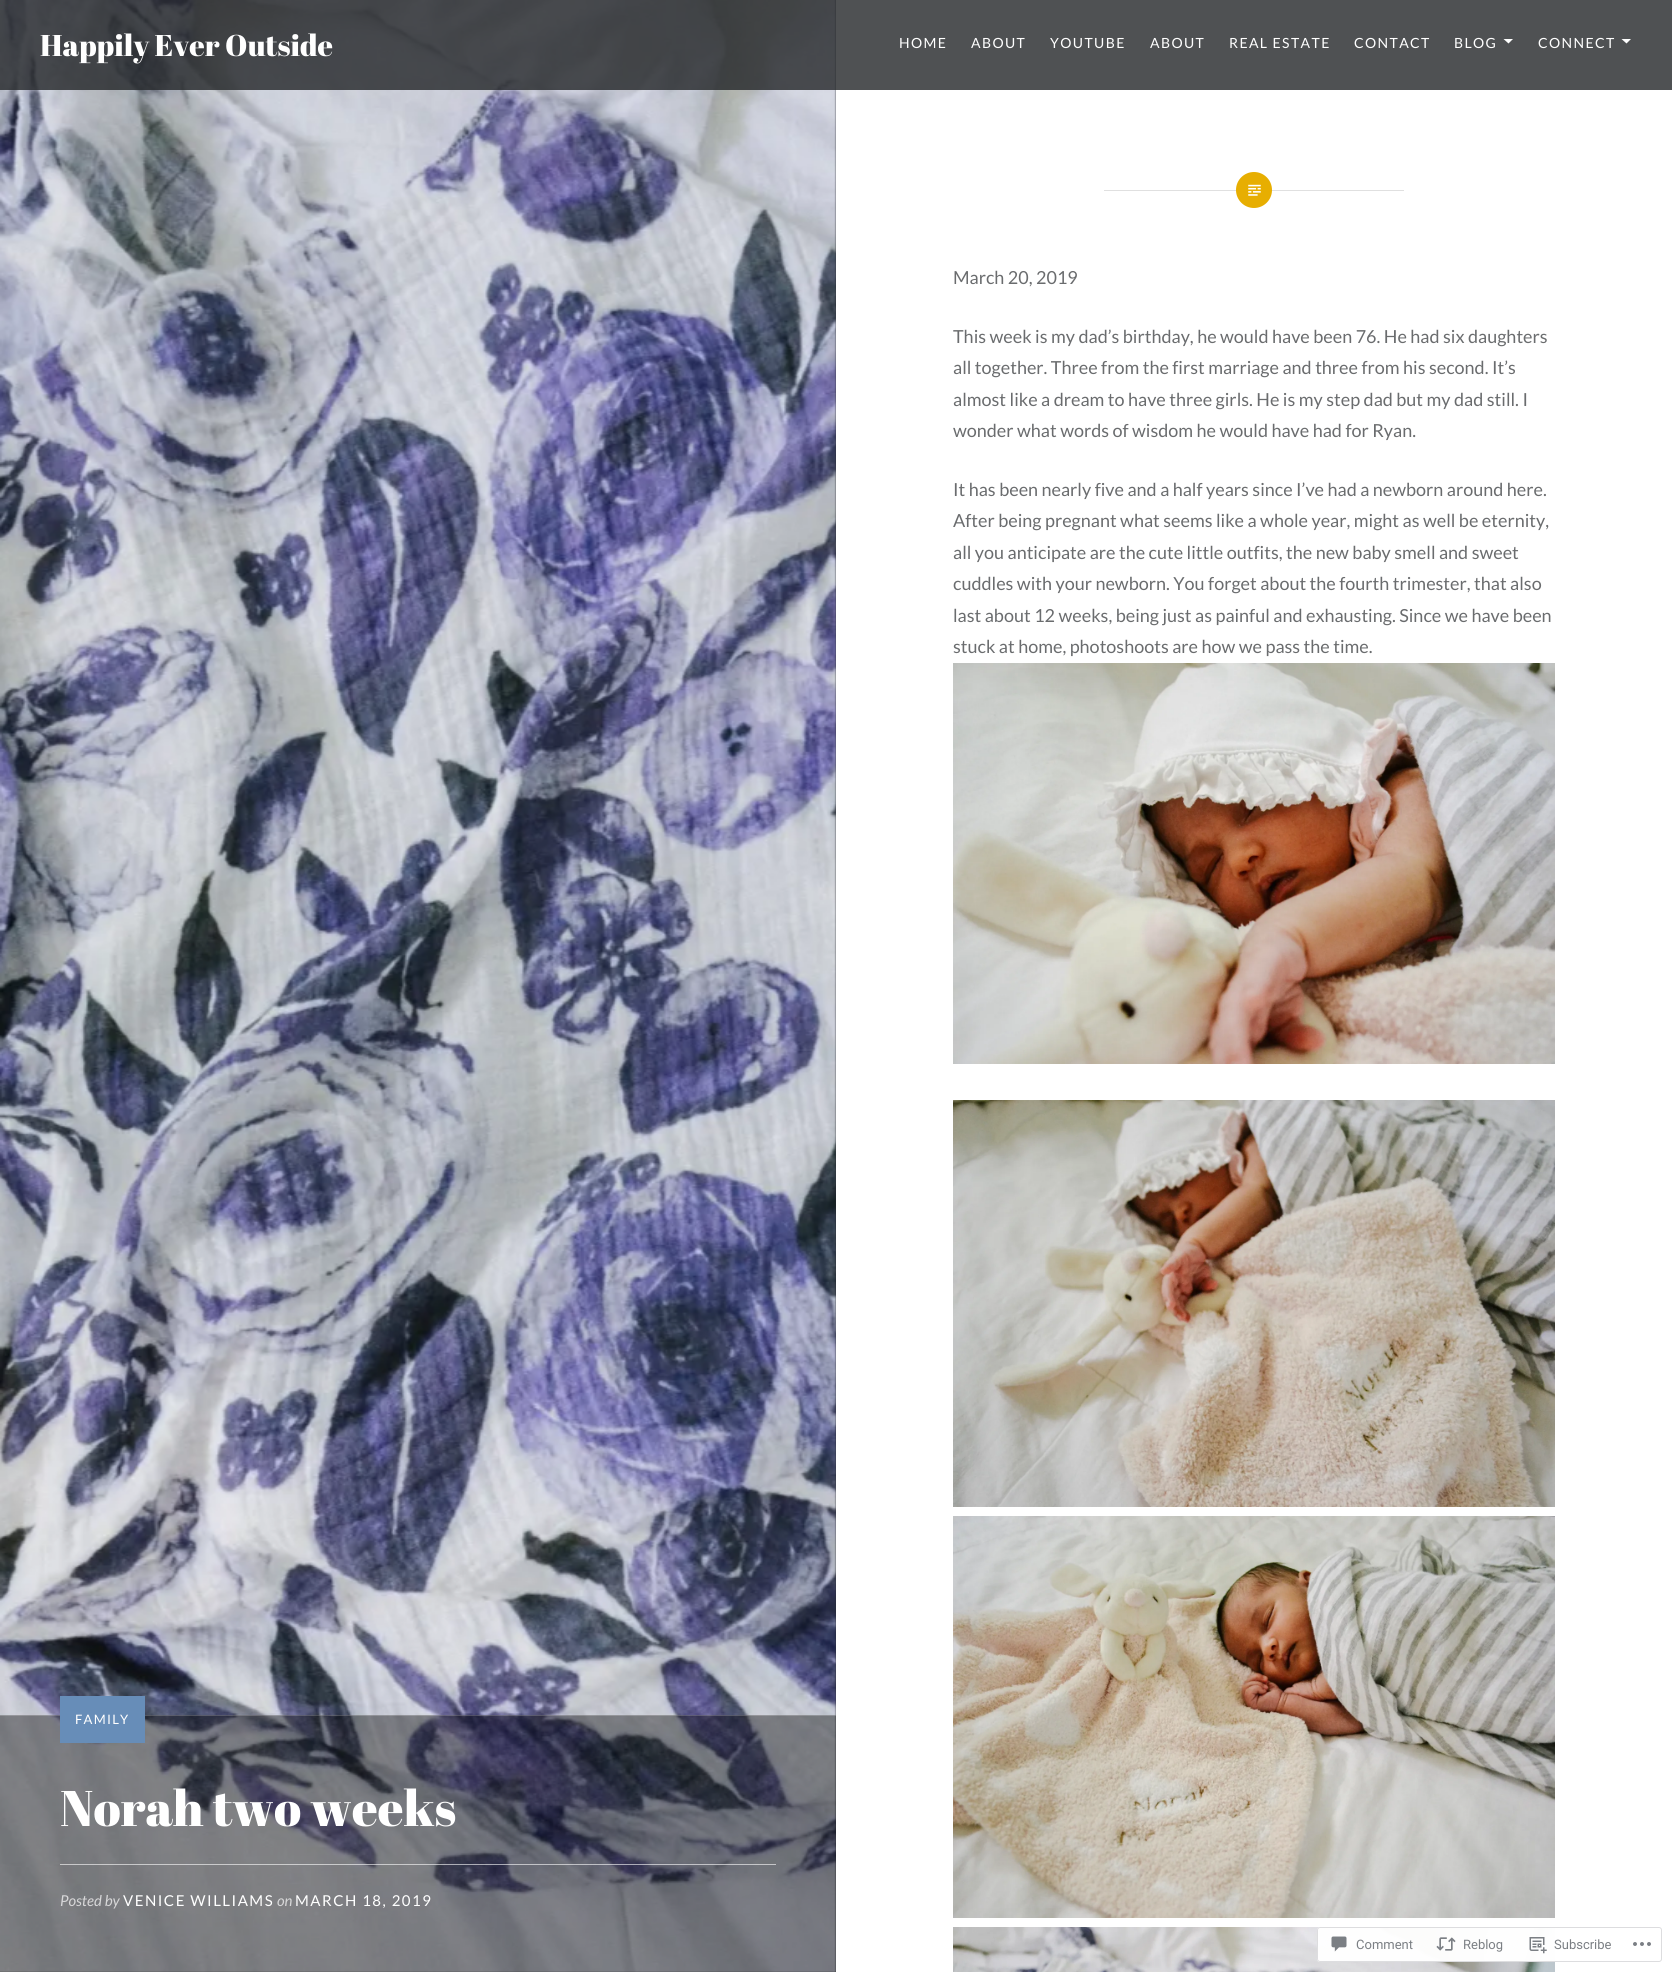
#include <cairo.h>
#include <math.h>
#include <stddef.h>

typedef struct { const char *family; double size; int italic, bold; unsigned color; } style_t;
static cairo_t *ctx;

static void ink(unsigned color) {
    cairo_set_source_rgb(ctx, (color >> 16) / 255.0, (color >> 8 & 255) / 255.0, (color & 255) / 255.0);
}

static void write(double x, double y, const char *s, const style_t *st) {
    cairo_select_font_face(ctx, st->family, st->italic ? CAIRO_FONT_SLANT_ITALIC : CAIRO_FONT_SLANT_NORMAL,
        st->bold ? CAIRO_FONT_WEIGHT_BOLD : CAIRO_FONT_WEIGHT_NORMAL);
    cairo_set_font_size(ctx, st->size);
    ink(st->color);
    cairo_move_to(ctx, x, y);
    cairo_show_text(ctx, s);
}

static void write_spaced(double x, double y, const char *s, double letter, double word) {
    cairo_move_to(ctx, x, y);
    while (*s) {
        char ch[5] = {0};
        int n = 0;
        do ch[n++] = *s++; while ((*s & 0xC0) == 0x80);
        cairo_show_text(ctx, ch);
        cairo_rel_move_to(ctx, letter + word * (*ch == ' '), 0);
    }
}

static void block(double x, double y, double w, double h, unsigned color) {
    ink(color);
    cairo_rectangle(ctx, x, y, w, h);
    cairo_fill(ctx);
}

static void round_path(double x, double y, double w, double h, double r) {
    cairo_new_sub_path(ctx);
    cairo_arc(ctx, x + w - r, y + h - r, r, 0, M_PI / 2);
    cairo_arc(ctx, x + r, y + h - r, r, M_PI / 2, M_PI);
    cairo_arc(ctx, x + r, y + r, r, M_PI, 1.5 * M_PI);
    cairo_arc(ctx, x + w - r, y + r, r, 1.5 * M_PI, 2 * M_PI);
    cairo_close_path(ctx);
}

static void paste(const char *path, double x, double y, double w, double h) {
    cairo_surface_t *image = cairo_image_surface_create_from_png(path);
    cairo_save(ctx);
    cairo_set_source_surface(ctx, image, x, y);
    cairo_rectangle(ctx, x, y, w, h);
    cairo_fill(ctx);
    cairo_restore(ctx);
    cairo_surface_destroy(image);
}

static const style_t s1 = {"Abril Fatface", 30, 0, 0, 0xffffff};
static const style_t s2 = {"Lato", 18, 0, 0, 0x6a6c6e};
static const style_t s3 = {"Abril Fatface", 50, 0, 0, 0xffffff};
static const style_t s4 = {"Lato", 15, 1, 0, 0xd7d7d8};
static const style_t s5 = {"Roboto", 13, 0, 0, 0x7b7f84};

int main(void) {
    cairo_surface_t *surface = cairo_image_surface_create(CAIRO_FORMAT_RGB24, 1672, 1972);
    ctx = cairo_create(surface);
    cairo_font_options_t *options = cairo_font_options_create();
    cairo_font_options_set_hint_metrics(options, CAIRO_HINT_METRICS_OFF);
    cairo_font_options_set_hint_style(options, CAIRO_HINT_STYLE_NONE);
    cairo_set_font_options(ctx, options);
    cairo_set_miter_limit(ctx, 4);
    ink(0x242629);
    cairo_paint(ctx);
    block(836, 0, 836, 1972, 0xffffff);
    paste("pic1.png", 0, 0, 836, 1972);
    cairo_set_source_rgba(ctx, 0.141, 0.149, 0.161, 0.8);
    cairo_rectangle(ctx, 0, 0, 1672, 90);
    cairo_fill(ctx);
    write(40, 56, "Happily Ever Outside", &s1);
    cairo_select_font_face(ctx, "Lato", CAIRO_FONT_SLANT_NORMAL, CAIRO_FONT_WEIGHT_NORMAL);
    cairo_set_font_size(ctx, 14);
    write_spaced(899, 48, "HOME", 1.4, 0);
    write_spaced(971, 48, "ABOUT", 1.4, 0);
    write_spaced(1050, 48, "YOUTUBE", 1.4, 0);
    write_spaced(1150, 48, "ABOUT", 1.4, 0);
    write_spaced(1229, 48, "REAL ESTATE", 1.4, 0);
    write_spaced(1354, 48, "CONTACT", 1.4, 0);
    write_spaced(1454, 48, "BLOG", 1.4, 0);
    cairo_new_path(ctx);
    cairo_move_to(ctx, 1503.5, 39);
    cairo_line_to(ctx, 1513, 39);
    cairo_line_to(ctx, 1508.5, 43.5);
    cairo_close_path(ctx);
    cairo_fill(ctx);
    write_spaced(1538, 48, "CONNECT", 1.4, 0);
    cairo_new_path(ctx);
    cairo_move_to(ctx, 1621.5, 39);
    cairo_line_to(ctx, 1631, 39);
    cairo_line_to(ctx, 1626.5, 43.5);
    cairo_close_path(ctx);
    cairo_fill(ctx);
    block(1104, 190, 300, 1, 0xe0e0e0);
    ink(0xe7ae01);
    cairo_arc(ctx, 1254, 190, 18, 0, 2 * M_PI);
    cairo_fill(ctx);
    paste("pic2.png", 1248, 184, 13, 12);
    write(953, 284, "March 20, 2019", &s2);
    write(953, 343, "This week is my dad’s birthday, he would have been 76. He had six daughters", &s2);
    write(953, 374, "all together. Three from the first marriage and three from his second. It’s", &s2);
    write(953, 406, "almost like a dream to have three girls. He is my step dad but my dad still. I", &s2);
    write(953, 437, "wonder what words of wisdom he would have had for Ryan.", &s2);
    write(953, 496, "It has been nearly five and a half years since I’ve had a newborn around here.", &s2);
    write(953, 527, "After being pregnant what seems like a whole year, might as well be eternity,", &s2);
    write(953, 559, "all you anticipate are the cute little outfits, the new baby smell and sweet", &s2);
    write(953, 590, "cuddles with your newborn. You forget about the fourth trimester, that also", &s2);
    write(953, 622, "last about 12 weeks, being just as painful and exhausting. Since we have been", &s2);
    write(953, 653, "stuck at home, photoshoots are how we pass the time.", &s2);
    paste("pic3.png", 953, 663, 602, 401);
    paste("pic4.png", 953, 1100, 602, 407);
    paste("pic5.png", 953, 1516, 602, 402);
    paste("pic6.png", 953, 1927, 602, 45);
    cairo_set_source_rgba(ctx, 0, 0, 0, 0.4);
    cairo_rectangle(ctx, 0, 1715, 836, 257);
    cairo_fill(ctx);
    cairo_set_source_rgba(ctx, 1, 1, 1, 0.2);
    cairo_rectangle(ctx, 0, 1715, 836, 1);
    cairo_fill(ctx);
    block(60, 1696, 85, 47, 0x678db8);
    cairo_set_font_size(ctx, 13);
    ink(0xffffff);
    write_spaced(75, 1724, "FAMILY", 1.25, 0);
    write(60, 1826, "Norah two weeks", &s3);
    cairo_set_source_rgba(ctx, 1, 1, 1, 0.6);
    cairo_rectangle(ctx, 60, 1864, 716, 1);
    cairo_fill(ctx);
    write(60, 1906, "Posted by", &s4);
    cairo_select_font_face(ctx, "Lato", CAIRO_FONT_SLANT_NORMAL, CAIRO_FONT_WEIGHT_NORMAL);
    ink(0xffffff);
    write_spaced(123, 1906, "VENICE WILLIAMS", 1.5, 0);
    write(277, 1906, "on", &s4);
    cairo_select_font_face(ctx, "Lato", CAIRO_FONT_SLANT_NORMAL, CAIRO_FONT_WEIGHT_NORMAL);
    ink(0xffffff);
    write_spaced(295, 1906, "MARCH 18, 2019", 1.5, 0);
    cairo_set_source_rgba(ctx, 1, 1, 1, 0.98);
    round_path(1317, 1927, 345, 35, 3);
    cairo_fill(ctx);
    round_path(1317.5, 1927.5, 344, 34, 2.5);
    cairo_set_source_rgba(ctx, 0.863, 0.863, 0.871, 0.98);
    cairo_set_line_width(ctx, 1);
    cairo_stroke(ctx);
    paste("pic7.png", 1331, 1936, 16, 16);
    write(1356, 1949, "Comment", &s5);
    paste("pic8.png", 1436, 1937, 20, 14);
    write(1463, 1949, "Reblog", &s5);
    paste("pic9.png", 1529, 1937, 18, 17);
    write(1554, 1949, "Subscribe", &s5);
    paste("pic10.png", 1633, 1942, 18, 4);
    cairo_surface_write_to_png(surface, "screenshot.png");
    cairo_font_options_destroy(options);
    cairo_destroy(ctx);
    cairo_surface_destroy(surface);
    return 0;
}
